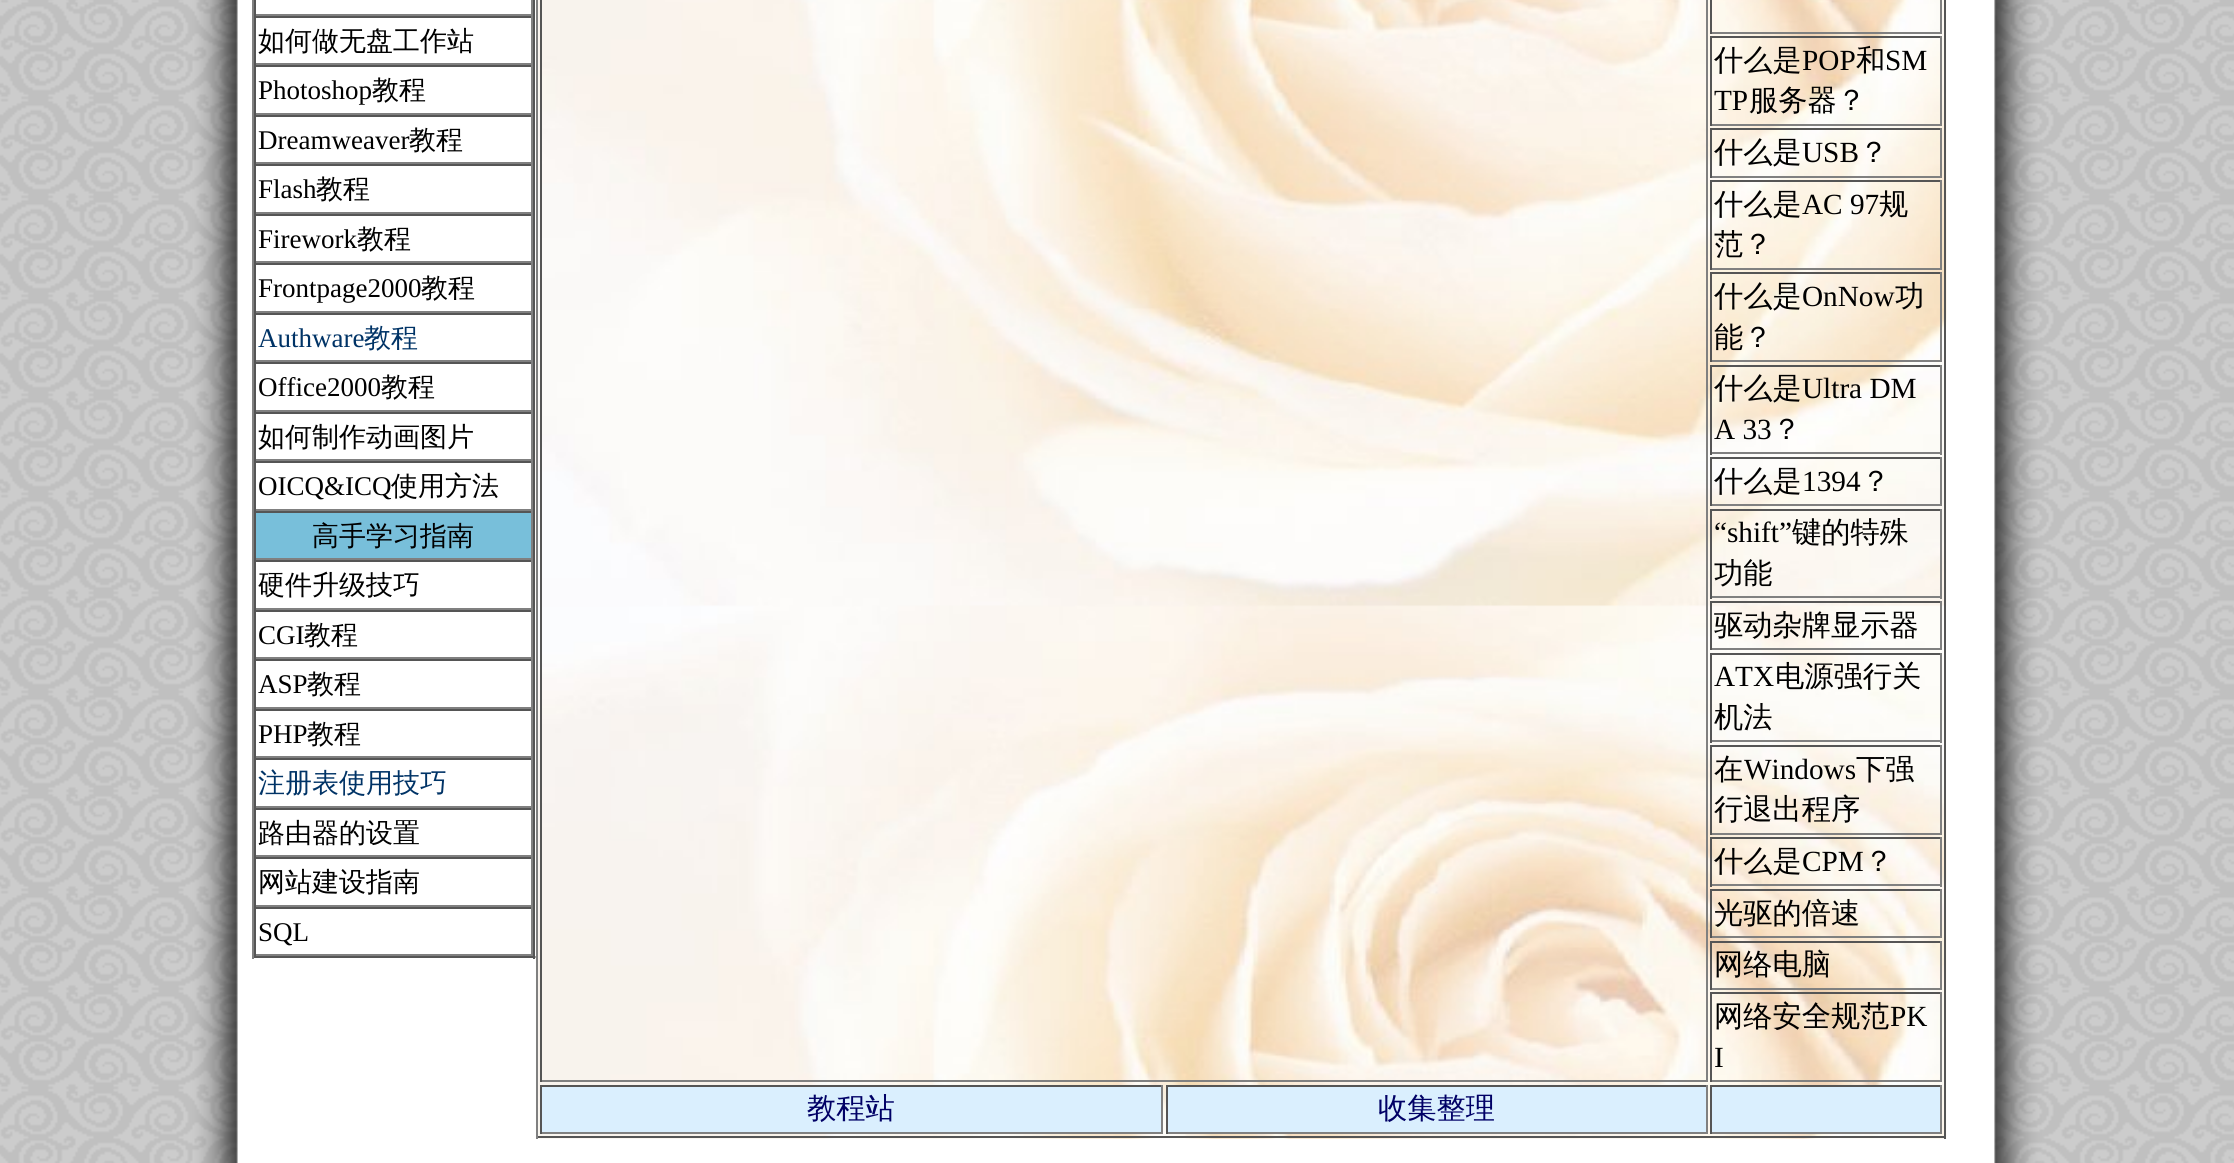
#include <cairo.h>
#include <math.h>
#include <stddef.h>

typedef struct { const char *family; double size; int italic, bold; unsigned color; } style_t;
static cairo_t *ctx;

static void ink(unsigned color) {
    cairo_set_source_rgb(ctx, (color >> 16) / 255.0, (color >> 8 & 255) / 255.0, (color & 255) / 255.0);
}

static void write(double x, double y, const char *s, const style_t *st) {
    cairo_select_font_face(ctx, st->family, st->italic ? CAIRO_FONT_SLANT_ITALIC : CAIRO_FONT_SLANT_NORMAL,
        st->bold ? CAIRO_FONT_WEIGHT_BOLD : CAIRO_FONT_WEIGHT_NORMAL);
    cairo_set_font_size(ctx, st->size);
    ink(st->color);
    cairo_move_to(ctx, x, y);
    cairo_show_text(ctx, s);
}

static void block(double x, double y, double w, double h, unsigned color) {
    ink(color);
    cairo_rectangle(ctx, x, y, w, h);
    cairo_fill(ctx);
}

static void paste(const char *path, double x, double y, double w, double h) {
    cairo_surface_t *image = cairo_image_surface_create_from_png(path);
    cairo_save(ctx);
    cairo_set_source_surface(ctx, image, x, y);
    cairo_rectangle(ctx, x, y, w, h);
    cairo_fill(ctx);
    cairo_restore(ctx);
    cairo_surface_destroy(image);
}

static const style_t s1 = {"WenQuanYi Zen Hei Medium", 27, 0, 0, 0x000000};
static const style_t s2 = {"Liberation Serif", 27, 0, 0, 0x000000};
static const style_t s3 = {"Liberation Serif", 27, 0, 0, 0x003366};
static const style_t s4 = {"WenQuanYi Zen Hei Medium", 27, 0, 0, 0x003366};
static const style_t s5 = {"WenQuanYi Zen Hei Medium", 29.25, 0, 0, 0x000000};
static const style_t s6 = {"Liberation Serif", 29.25, 0, 0, 0x000000};
static const style_t s7 = {"WenQuanYi Zen Hei Medium", 29.25, 0, 0, 0x000066};

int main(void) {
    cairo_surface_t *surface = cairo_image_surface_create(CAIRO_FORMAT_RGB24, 2234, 1163);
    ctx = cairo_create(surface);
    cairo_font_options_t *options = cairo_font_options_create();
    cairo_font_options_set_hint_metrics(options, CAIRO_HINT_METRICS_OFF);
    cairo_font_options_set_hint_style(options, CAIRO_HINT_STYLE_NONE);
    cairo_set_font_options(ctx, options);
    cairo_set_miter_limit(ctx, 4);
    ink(0xffffff);
    cairo_paint(ctx);
    paste("pic1.png", 0, 0, 2234, 1163);
    block(533, 0, 2, 959, 0x555555);
    block(252, 956, 284, 2, 0x555555);
    block(252, 0, 2, 959, 0x808080);
    block(531, 0, 2, 16, 0x808080);
    block(254, 14, 279, 2, 0x808080);
    block(254, 0, 2, 16, 0x555555);
    block(254, 16, 279, 2, 0x555555);
    block(531, 16, 2, 49, 0x808080);
    block(254, 63, 279, 2, 0x808080);
    block(254, 16, 2, 49, 0x555555);
    write(258, 50, "如何做无盘工作站", &s1);
    block(254, 65, 279, 2, 0x555555);
    block(531, 65, 2, 50, 0x808080);
    block(254, 113, 279, 2, 0x808080);
    block(254, 65, 2, 50, 0x555555);
    write(258, 99, "Photoshop", &s2);
    write(372, 99, "教程", &s1);
    block(254, 115, 279, 2, 0x555555);
    block(531, 115, 2, 49, 0x808080);
    block(254, 162, 279, 2, 0x808080);
    block(254, 115, 2, 49, 0x555555);
    write(258, 149, "Dreamweaver", &s2);
    write(409, 149, "教程", &s1);
    block(254, 164, 279, 2, 0x555555);
    block(531, 164, 2, 50, 0x808080);
    block(254, 212, 279, 2, 0x808080);
    block(254, 164, 2, 50, 0x555555);
    write(258, 198, "Flash", &s2);
    write(316, 198, "教程", &s1);
    block(254, 214, 279, 2, 0x555555);
    block(531, 214, 2, 49, 0x808080);
    block(254, 261, 279, 2, 0x808080);
    block(254, 214, 2, 49, 0x555555);
    write(258, 248, "Firework", &s2);
    write(357, 248, "教程", &s1);
    block(254, 263, 279, 2, 0x555555);
    block(531, 263, 2, 50, 0x808080);
    block(254, 311, 279, 2, 0x808080);
    block(254, 263, 2, 50, 0x555555);
    write(258, 297, "Frontpage2000", &s2);
    write(421, 297, "教程", &s1);
    block(254, 313, 279, 2, 0x555555);
    block(531, 313, 2, 49, 0x808080);
    block(254, 360, 279, 2, 0x808080);
    block(254, 313, 2, 49, 0x555555);
    write(258, 347, "Authware", &s3);
    write(364, 347, "教程", &s4);
    block(254, 362, 279, 2, 0x555555);
    block(531, 362, 2, 50, 0x808080);
    block(254, 410, 279, 2, 0x808080);
    block(254, 362, 2, 50, 0x555555);
    write(258, 396, "Office2000", &s2);
    write(381, 396, "教程", &s1);
    block(254, 412, 279, 2, 0x555555);
    block(531, 412, 2, 49, 0x808080);
    block(254, 459, 279, 2, 0x808080);
    block(254, 412, 2, 49, 0x555555);
    write(258, 446, "如何制作动画图片", &s1);
    block(254, 461, 279, 2, 0x555555);
    block(531, 461, 2, 50, 0x808080);
    block(254, 509, 279, 2, 0x808080);
    block(254, 461, 2, 50, 0x555555);
    write(258, 495, "OICQ&ICQ", &s2);
    write(391, 495, "使用方法", &s1);
    block(256, 513, 275, 45, 0x78bfda);
    block(254, 511, 279, 2, 0x555555);
    block(531, 511, 2, 49, 0x808080);
    block(254, 558, 279, 2, 0x808080);
    block(254, 511, 2, 49, 0x555555);
    write(312, 545, "高手学习指南", &s1);
    block(254, 560, 279, 2, 0x555555);
    block(531, 560, 2, 50, 0x808080);
    block(254, 608, 279, 2, 0x808080);
    block(254, 560, 2, 50, 0x555555);
    write(258, 594, "硬件升级技巧", &s1);
    block(254, 610, 279, 2, 0x555555);
    block(531, 610, 2, 49, 0x808080);
    block(254, 657, 279, 2, 0x808080);
    block(254, 610, 2, 49, 0x555555);
    write(258, 644, "CGI", &s2);
    write(304, 644, "教程", &s1);
    block(254, 659, 279, 2, 0x555555);
    block(531, 659, 2, 50, 0x808080);
    block(254, 707, 279, 2, 0x808080);
    block(254, 659, 2, 50, 0x555555);
    write(258, 693, "ASP", &s2);
    write(307, 693, "教程", &s1);
    block(254, 709, 279, 2, 0x555555);
    block(531, 709, 2, 49, 0x808080);
    block(254, 756, 279, 2, 0x808080);
    block(254, 709, 2, 49, 0x555555);
    write(258, 743, "PHP", &s2);
    write(307, 743, "教程", &s1);
    block(254, 758, 279, 2, 0x555555);
    block(531, 758, 2, 50, 0x808080);
    block(254, 806, 279, 2, 0x808080);
    block(254, 758, 2, 50, 0x555555);
    write(258, 792, "注册表使用技巧", &s4);
    block(254, 808, 279, 2, 0x555555);
    block(531, 808, 2, 49, 0x808080);
    block(254, 855, 279, 2, 0x808080);
    block(254, 808, 2, 49, 0x555555);
    write(258, 842, "路由器的设置", &s1);
    block(254, 857, 279, 2, 0x555555);
    block(531, 857, 2, 50, 0x808080);
    block(254, 905, 279, 2, 0x808080);
    block(254, 857, 2, 50, 0x555555);
    write(258, 891, "网站建设指南", &s1);
    block(254, 907, 279, 2, 0x555555);
    block(531, 907, 2, 49, 0x808080);
    block(254, 954, 279, 2, 0x808080);
    block(254, 907, 2, 49, 0x555555);
    write(258, 941, "SQL", &s2);
    paste("pic2.png", 535, 0, 1412, 1139);
    block(1944, 0, 2, 1139, 0x555555);
    block(536, 1136, 1410, 2, 0x555555);
    block(536, 0, 2, 1139, 0x808080);
    block(1706, 0, 2, 1082, 0x808080);
    block(540, 1080, 1168, 2, 0x808080);
    block(540, 0, 2, 1082, 0x555555);
    block(1940, 0, 2, 34, 0x808080);
    block(1710, 32, 232, 2, 0x808080);
    block(1710, 0, 2, 34, 0x555555);
    block(1710, 36, 232, 2, 0x555555);
    block(1940, 36, 2, 90, 0x808080);
    block(1710, 124, 232, 2, 0x808080);
    block(1710, 36, 2, 90, 0x555555);
    write(1714, 70, "什么是", &s5);
    write(1802, 70, "POP", &s6);
    write(1856, 70, "和", &s5);
    write(1885, 70, "SM", &s6);
    write(1714, 110, "TP", &s6);
    write(1749, 110, "服务器？", &s5);
    block(1710, 128, 232, 2, 0x555555);
    block(1940, 128, 2, 50, 0x808080);
    block(1710, 176, 232, 2, 0x808080);
    block(1710, 128, 2, 50, 0x555555);
    write(1714, 162, "什么是", &s5);
    write(1802, 162, "USB", &s6);
    write(1859, 162, "？", &s5);
    block(1710, 180, 232, 2, 0x555555);
    block(1940, 180, 2, 90, 0x808080);
    block(1710, 268, 232, 2, 0x808080);
    block(1710, 180, 2, 90, 0x555555);
    write(1714, 214, "什么是", &s5);
    write(1802, 214, "AC 97", &s6);
    write(1879, 214, "规", &s5);
    write(1714, 254, "范？", &s5);
    block(1710, 272, 232, 2, 0x555555);
    block(1940, 272, 2, 90, 0x808080);
    block(1710, 360, 232, 2, 0x808080);
    block(1710, 272, 2, 90, 0x555555);
    write(1714, 306, "什么是", &s5);
    write(1802, 306, "OnNow", &s6);
    write(1895, 306, "功", &s5);
    write(1714, 347, "能？", &s5);
    block(1710, 365, 232, 2, 0x555555);
    block(1940, 365, 2, 90, 0x808080);
    block(1710, 452, 232, 2, 0x808080);
    block(1710, 365, 2, 90, 0x555555);
    write(1714, 398, "什么是", &s5);
    write(1802, 398, "Ultra DM", &s6);
    write(1714, 439, "A 33", &s6);
    write(1772, 439, "？", &s5);
    block(1710, 457, 232, 2, 0x555555);
    block(1940, 457, 2, 49, 0x808080);
    block(1710, 504, 232, 2, 0x808080);
    block(1710, 457, 2, 49, 0x555555);
    write(1714, 491, "什么是", &s5);
    write(1802, 491, "1394", &s6);
    write(1861, 491, "？", &s5);
    block(1710, 509, 232, 2, 0x555555);
    block(1940, 509, 2, 90, 0x808080);
    block(1710, 596, 232, 2, 0x808080);
    block(1710, 509, 2, 90, 0x555555);
    write(1714, 542, "“shift”", &s6);
    write(1792, 542, "键的特殊", &s5);
    write(1714, 583, "功能", &s5);
    block(1710, 601, 232, 2, 0x555555);
    block(1940, 601, 2, 49, 0x808080);
    block(1710, 648, 232, 2, 0x808080);
    block(1710, 601, 2, 49, 0x555555);
    write(1714, 635, "驱动杂牌显示器", &s5);
    block(1710, 653, 232, 2, 0x555555);
    block(1940, 653, 2, 90, 0x808080);
    block(1710, 740, 232, 2, 0x808080);
    block(1710, 653, 2, 90, 0x555555);
    write(1714, 686, "ATX", &s6);
    write(1775, 686, "电源强行关", &s5);
    write(1714, 727, "机法", &s5);
    block(1710, 745, 232, 2, 0x555555);
    block(1940, 745, 2, 90, 0x808080);
    block(1710, 833, 232, 2, 0x808080);
    block(1710, 745, 2, 90, 0x555555);
    write(1714, 779, "在", &s5);
    write(1744, 779, "Windows", &s6);
    write(1856, 779, "下强", &s5);
    write(1714, 819, "行退出程序", &s5);
    block(1710, 837, 232, 2, 0x555555);
    block(1940, 837, 2, 50, 0x808080);
    block(1710, 884, 232, 2, 0x808080);
    block(1710, 837, 2, 50, 0x555555);
    write(1714, 871, "什么是", &s5);
    write(1802, 871, "CPM", &s6);
    write(1864, 871, "？", &s5);
    block(1710, 889, 232, 2, 0x555555);
    block(1940, 889, 2, 49, 0x808080);
    block(1710, 936, 232, 2, 0x808080);
    block(1710, 889, 2, 49, 0x555555);
    write(1714, 923, "光驱的倍速", &s5);
    block(1710, 941, 232, 2, 0x555555);
    block(1940, 941, 2, 49, 0x808080);
    block(1710, 988, 232, 2, 0x808080);
    block(1710, 941, 2, 49, 0x555555);
    write(1714, 974, "网络电脑", &s5);
    block(1710, 992, 232, 2, 0x555555);
    block(1940, 992, 2, 90, 0x808080);
    block(1710, 1080, 232, 2, 0x808080);
    block(1710, 992, 2, 90, 0x555555);
    write(1714, 1026, "网络安全规范", &s5);
    write(1890, 1026, "PK", &s6);
    write(1714, 1067, "I", &s6);
    block(542, 1087, 619, 45, 0xdaeffe);
    block(540, 1085, 623, 2, 0x555555);
    block(1161, 1085, 2, 49, 0x808080);
    block(540, 1132, 623, 2, 0x808080);
    block(540, 1085, 2, 49, 0x555555);
    write(807, 1118, "教程站", &s7);
    block(1168, 1087, 538, 45, 0xdaeffe);
    block(1166, 1085, 542, 2, 0x555555);
    block(1706, 1085, 2, 49, 0x808080);
    block(1166, 1132, 542, 2, 0x808080);
    block(1166, 1085, 2, 49, 0x555555);
    write(1378, 1118, "收集整理", &s7);
    block(1712, 1087, 228, 45, 0xdaeffe);
    block(1710, 1085, 232, 2, 0x555555);
    block(1940, 1085, 2, 49, 0x808080);
    block(1710, 1132, 232, 2, 0x808080);
    block(1710, 1085, 2, 49, 0x555555);
    cairo_surface_write_to_png(surface, "screenshot.png");
    cairo_font_options_destroy(options);
    cairo_destroy(ctx);
    cairo_surface_destroy(surface);
    return 0;
}
